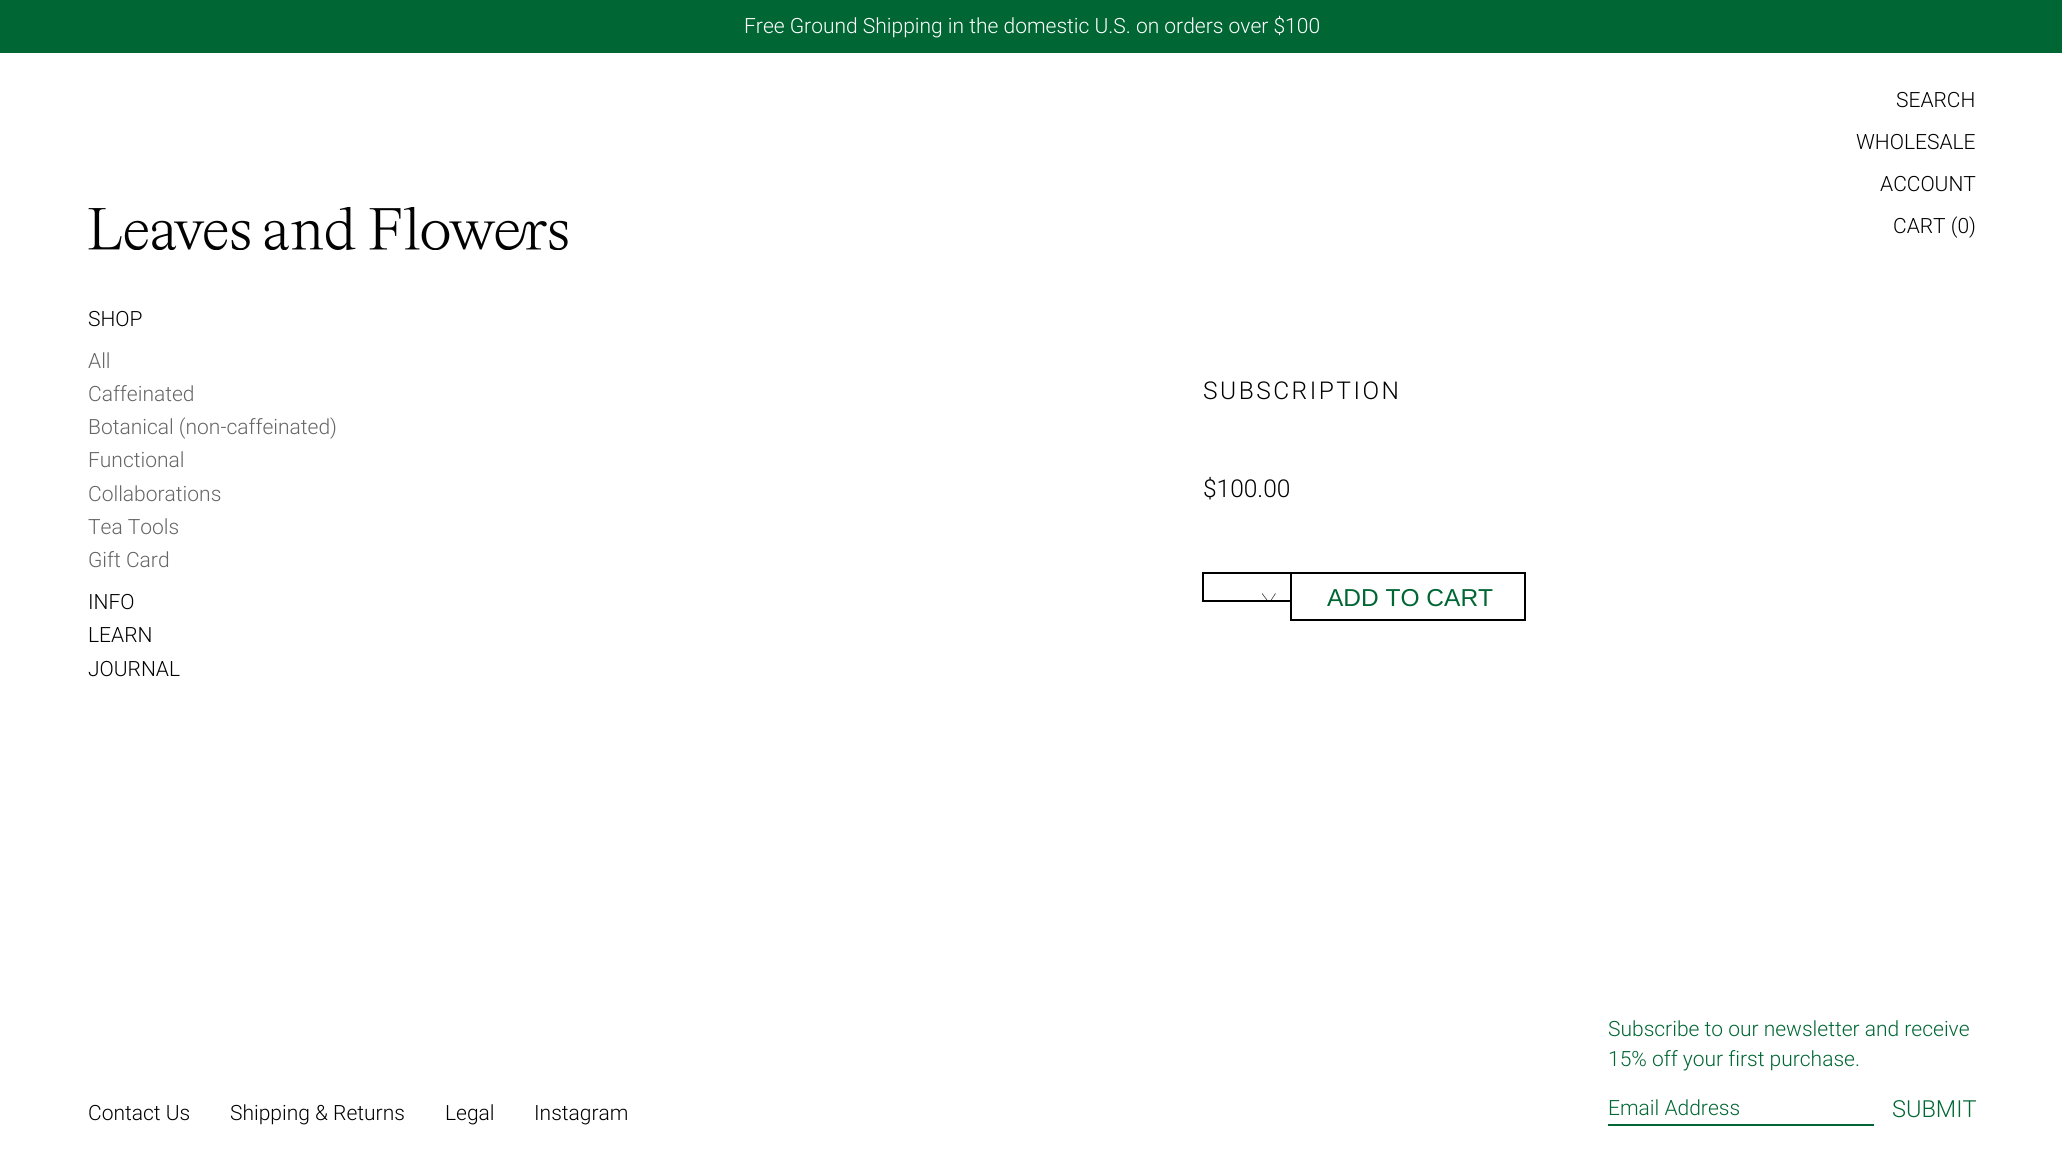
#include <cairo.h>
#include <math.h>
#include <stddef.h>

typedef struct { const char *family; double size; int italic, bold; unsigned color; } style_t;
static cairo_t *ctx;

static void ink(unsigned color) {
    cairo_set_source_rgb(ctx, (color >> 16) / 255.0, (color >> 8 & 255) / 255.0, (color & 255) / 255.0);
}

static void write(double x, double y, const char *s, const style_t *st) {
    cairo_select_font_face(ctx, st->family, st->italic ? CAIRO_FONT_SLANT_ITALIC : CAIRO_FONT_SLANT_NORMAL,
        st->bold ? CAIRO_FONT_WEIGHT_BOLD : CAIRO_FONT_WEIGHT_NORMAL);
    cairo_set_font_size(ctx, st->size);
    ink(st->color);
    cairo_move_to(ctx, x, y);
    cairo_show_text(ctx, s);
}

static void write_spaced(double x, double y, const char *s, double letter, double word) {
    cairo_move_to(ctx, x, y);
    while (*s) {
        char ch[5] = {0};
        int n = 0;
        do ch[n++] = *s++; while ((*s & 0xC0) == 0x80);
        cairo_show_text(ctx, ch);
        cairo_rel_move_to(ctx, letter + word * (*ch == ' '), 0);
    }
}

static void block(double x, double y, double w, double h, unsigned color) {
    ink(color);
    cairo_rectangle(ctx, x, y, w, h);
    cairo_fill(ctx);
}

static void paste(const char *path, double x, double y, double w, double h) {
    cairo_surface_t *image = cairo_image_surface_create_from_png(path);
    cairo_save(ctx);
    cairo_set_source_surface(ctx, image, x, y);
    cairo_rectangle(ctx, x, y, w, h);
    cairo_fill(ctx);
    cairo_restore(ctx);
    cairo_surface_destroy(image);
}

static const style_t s1 = {"Roboto Light", 21, 0, 0, 0xffffff};
static const style_t s2 = {"Roboto Light", 21, 0, 0, 0x000000};
static const style_t s3 = {"Roboto Light", 21, 0, 0, 0x666666};
static const style_t s4 = {"Roboto Light", 24.5, 0, 0, 0x000000};
static const style_t s5 = {"Liberation Sans", 24.5, 0, 0, 0x006633};
static const style_t s6 = {"Roboto Light", 21, 0, 0, 0x006633};
static const style_t s7 = {"Roboto Light", 23.5, 0, 0, 0x006633};

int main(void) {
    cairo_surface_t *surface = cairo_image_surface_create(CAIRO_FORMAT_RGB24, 2062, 1160);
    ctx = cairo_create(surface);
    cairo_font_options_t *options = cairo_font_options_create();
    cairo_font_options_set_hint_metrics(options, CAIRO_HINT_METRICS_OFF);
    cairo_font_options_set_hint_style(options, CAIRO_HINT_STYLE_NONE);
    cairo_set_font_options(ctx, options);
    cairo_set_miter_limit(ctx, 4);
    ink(0xffffff);
    cairo_paint(ctx);
    block(0, 0, 2062, 53, 0x006633);
    write(744, 33, "Free Ground Shipping in the domestic U.S. on orders over $100", &s1);
    paste("pic1.png", 88, 207, 480, 43);
    write(1896, 107, "SEARCH", &s2);
    write(1856, 149, "WHOLESALE", &s2);
    write(1880, 191, "ACCOUNT", &s2);
    write(1893, 233, "CART (0)", &s2);
    write(88, 326, "SHOP", &s2);
    write(88, 368, "All", &s3);
    write(88, 401, "Caffeinated", &s3);
    write(88, 434, "Botanical (non-caffeinated)", &s3);
    write(88, 467, "Functional", &s3);
    write(88, 501, "Collaborations", &s3);
    write(88, 534, "Tea Tools", &s3);
    write(88, 567, "Gift Card", &s3);
    write(88, 609, "INFO", &s2);
    write(88, 642, "LEARN", &s2);
    write(88, 676, "JOURNAL", &s2);
    cairo_set_font_size(ctx, 24.5);
    write_spaced(1203, 399, "SUBSCRIPTION", 2.5, 0);
    write(1203, 497, "$100.00", &s4);
    block(1202, 572, 88, 2, 0x000000);
    block(1202, 600, 88, 2, 0x000000);
    block(1202, 572, 2, 30, 0x000000);
    paste("pic2.png", 1262, 593, 14, 7);
    cairo_rectangle(ctx, 1291, 573, 234, 47);
    cairo_stroke(ctx);
    write(1327, 606, "ADD TO CART", &s5);
    write(88, 1120, "Contact Us", &s2);
    write(230, 1120, "Shipping & Returns", &s2);
    write(445, 1120, "Legal", &s2);
    write(534, 1120, "Instagram", &s2);
    write(1608, 1036, "Subscribe to our newsletter and receive", &s6);
    write(1608, 1066, "15% off your first purchase.", &s6);
    block(1608, 1124, 266, 2, 0x006633);
    write(1608, 1115, "Email Address", &s6);
    write(1892, 1117, "SUBMIT", &s7);
    cairo_surface_write_to_png(surface, "screenshot.png");
    cairo_font_options_destroy(options);
    cairo_destroy(ctx);
    cairo_surface_destroy(surface);
    return 0;
}
